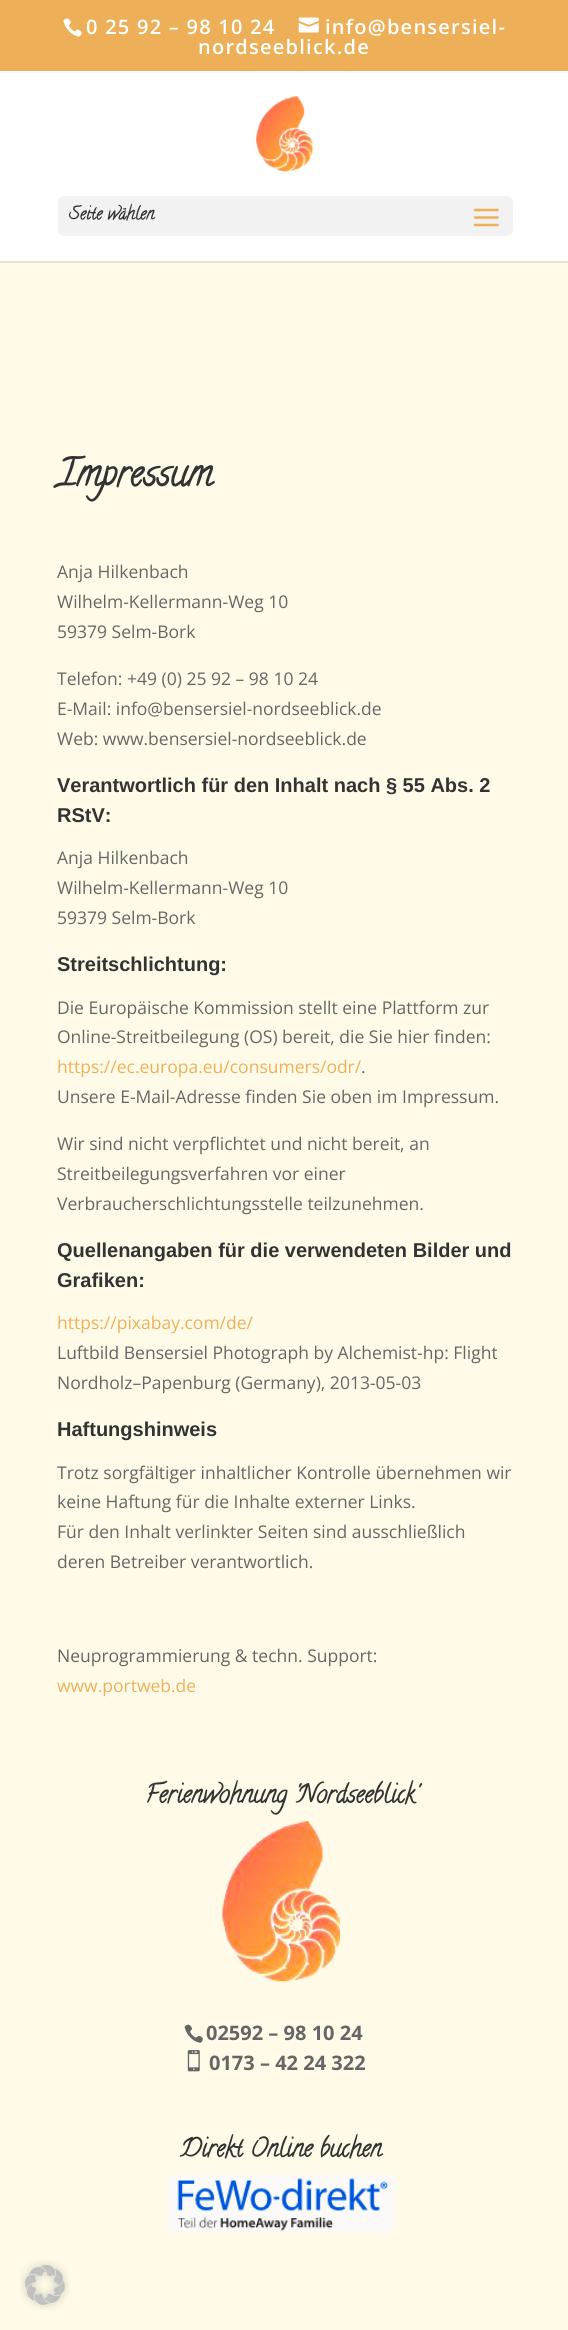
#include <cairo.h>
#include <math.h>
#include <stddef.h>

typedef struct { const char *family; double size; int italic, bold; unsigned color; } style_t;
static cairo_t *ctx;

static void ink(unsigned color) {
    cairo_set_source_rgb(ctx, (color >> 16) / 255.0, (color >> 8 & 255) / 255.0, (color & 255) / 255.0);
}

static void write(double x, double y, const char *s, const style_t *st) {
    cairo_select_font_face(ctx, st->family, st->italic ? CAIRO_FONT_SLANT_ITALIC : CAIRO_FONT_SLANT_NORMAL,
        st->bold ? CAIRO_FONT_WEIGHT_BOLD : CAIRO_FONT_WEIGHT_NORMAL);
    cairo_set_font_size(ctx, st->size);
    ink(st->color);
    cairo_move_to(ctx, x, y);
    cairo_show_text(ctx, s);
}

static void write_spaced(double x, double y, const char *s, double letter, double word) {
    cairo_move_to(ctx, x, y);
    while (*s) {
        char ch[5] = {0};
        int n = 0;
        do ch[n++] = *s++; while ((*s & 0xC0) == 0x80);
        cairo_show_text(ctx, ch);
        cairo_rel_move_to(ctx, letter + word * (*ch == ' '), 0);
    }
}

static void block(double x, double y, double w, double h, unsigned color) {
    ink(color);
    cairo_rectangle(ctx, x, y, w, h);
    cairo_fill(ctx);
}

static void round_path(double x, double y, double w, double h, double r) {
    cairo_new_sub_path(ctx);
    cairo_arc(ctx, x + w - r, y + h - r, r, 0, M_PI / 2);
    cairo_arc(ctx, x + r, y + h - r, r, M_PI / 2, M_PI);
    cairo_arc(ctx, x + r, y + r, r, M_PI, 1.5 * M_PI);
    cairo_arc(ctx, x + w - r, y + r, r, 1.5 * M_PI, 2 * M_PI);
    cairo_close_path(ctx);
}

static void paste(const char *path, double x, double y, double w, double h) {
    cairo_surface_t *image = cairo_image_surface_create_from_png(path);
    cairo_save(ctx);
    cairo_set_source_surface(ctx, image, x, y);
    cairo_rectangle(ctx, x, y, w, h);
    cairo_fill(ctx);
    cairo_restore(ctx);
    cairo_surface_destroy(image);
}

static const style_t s1 = {"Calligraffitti", 17.5, 0, 1, 0x333333};
static const style_t s2 = {"Calligraffitti", 37.5, 0, 1, 0x333333};
static const style_t s3 = {"Open Sans", 17.5, 0, 0, 0x666666};
static const style_t s4 = {"Liberation Sans", 20, 0, 1, 0x333333};
static const style_t s5 = {"Open Sans", 17.5, 0, 0, 0xedb059};
static const style_t s6 = {"Calligraffitti", 25, 0, 1, 0x333333};
static const style_t s7 = {"Open Sans", 20, 0, 1, 0x666666};

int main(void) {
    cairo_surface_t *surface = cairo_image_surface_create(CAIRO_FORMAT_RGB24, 568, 2330);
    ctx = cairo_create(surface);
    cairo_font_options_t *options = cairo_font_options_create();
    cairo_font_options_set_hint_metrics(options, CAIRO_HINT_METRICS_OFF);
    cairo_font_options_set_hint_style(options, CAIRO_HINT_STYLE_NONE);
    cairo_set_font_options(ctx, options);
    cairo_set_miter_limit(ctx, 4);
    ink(0xfffbe8);
    cairo_paint(ctx);
    block(0, 0, 568, 71, 0xedb059);
    paste("pic1.png", 63, 18, 19, 19);
    cairo_select_font_face(ctx, "Open Sans SemiBold", CAIRO_FONT_SLANT_NORMAL, CAIRO_FONT_WEIGHT_NORMAL);
    cairo_set_font_size(ctx, 20);
    ink(0xffffff);
    write_spaced(86, 34, "0 25 92 – 98 10 24", 1.25, 0);
    paste("pic2.png", 298, 17, 21, 16);
    write_spaced(325, 34, "info@bensersiel-", 1.25, 0);
    write_spaced(198, 54, "nordseeblick.de", 1.25, 0);
    ink(0xe6e2d1);
    cairo_new_path(ctx);
    cairo_move_to(ctx, 0, 261);
    cairo_line_to(ctx, 0, 263);
    cairo_line_to(ctx, 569, 263);
    cairo_line_to(ctx, 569, 73);
    cairo_line_to(ctx, 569, 261);
    cairo_close_path(ctx);
    cairo_fill(ctx);
    block(0, 71, 568, 190, 0xffffff);
    paste("pic3.png", 256, 96, 58, 76);
    ink(0xf2f2f2);
    round_path(58, 196, 455, 40, 6);
    cairo_fill(ctx);
    write(69, 219, "Seite wählen", &s1);
    paste("pic4.png", 473, 208, 26, 19);
    write(57, 485, "Impressum", &s2);
    write(57, 578, "Anja Hilkenbach", &s3);
    write(57, 608, "Wilhelm-Kellermann-Weg 10", &s3);
    write(57, 638, "59379 Selm-Bork", &s3);
    write(57, 685, "Telefon: +49 (0) 25 92 – 98 10 24", &s3);
    write(57, 715, "E-Mail: info@bensersiel-nordseeblick.de", &s3);
    write(57, 745, "Web: www.bensersiel-nordseeblick.de", &s3);
    write(57, 792, "Verantwortlich für den Inhalt nach § 55 Abs. 2", &s4);
    write(57, 822, "RStV:", &s4);
    write(57, 864, "Anja Hilkenbach", &s3);
    write(57, 894, "Wilhelm-Kellermann-Weg 10", &s3);
    write(57, 924, "59379 Selm-Bork", &s3);
    write(57, 971, "Streitschlichtung:", &s4);
    write(57, 1014, "Die Europäische Kommission stellt eine Plattform zur", &s3);
    write(57, 1043, "Online-Streitbeilegung (OS) bereit, die Sie hier finden:", &s3);
    write(57, 1073, "https://ec.europa.eu/consumers/odr/", &s5);
    write(361, 1073, ".", &s3);
    write(57, 1103, "Unsere E-Mail-Adresse finden Sie oben im Impressum.", &s3);
    write(57, 1150, "Wir sind nicht verpflichtet und nicht bereit, an", &s3);
    write(57, 1180, "Streitbeilegungsverfahren vor einer", &s3);
    write(57, 1210, "Verbraucherschlichtungsstelle teilzunehmen.", &s3);
    write(57, 1257, "Quellenangaben für die verwendeten Bilder und", &s4);
    write(57, 1287, "Grafiken:", &s4);
    write(57, 1329, "https://pixabay.com/de/", &s5);
    write(57, 1359, "Luftbild Bensersiel Photograph by Alchemist-hp: Flight", &s3);
    write(57, 1389, "Nordholz–Papenburg (Germany), 2013-05-03", &s3);
    write(57, 1436, "Haftungshinweis", &s4);
    write(57, 1479, "Trotz sorgfältiger inhaltlicher Kontrolle übernehmen wir", &s3);
    write(57, 1508, "keine Haftung für die Inhalte externer Links.", &s3);
    write(57, 1538, "Für den Inhalt verlinkter Seiten sind ausschließlich", &s3);
    write(57, 1568, "deren Betreiber verantwortlich.", &s3);
    write(57, 1662, "Neuprogrammierung & techn. Support:", &s3);
    write(57, 1692, "www.portweb.de", &s5);
    write(145, 1802, "Ferienwohnung 'Nordseeblick'", &s6);
    paste("pic5.png", 222, 1821, 118, 161);
    paste("pic6.png", 184, 2024, 19, 19);
    write(206, 2040, "02592 – 98 10 24", &s7);
    paste("pic7.png", 187, 2050, 13, 22);
    write(209, 2070, "0173 – 42 24 322", &s7);
    write(180, 2156, "Direkt Online buchen", &s6);
    paste("pic8.png", 168, 2175, 226, 58);
    paste("pic9.png", 20, 2260, 50, 50);
    cairo_surface_write_to_png(surface, "screenshot.png");
    cairo_font_options_destroy(options);
    cairo_destroy(ctx);
    cairo_surface_destroy(surface);
    return 0;
}
